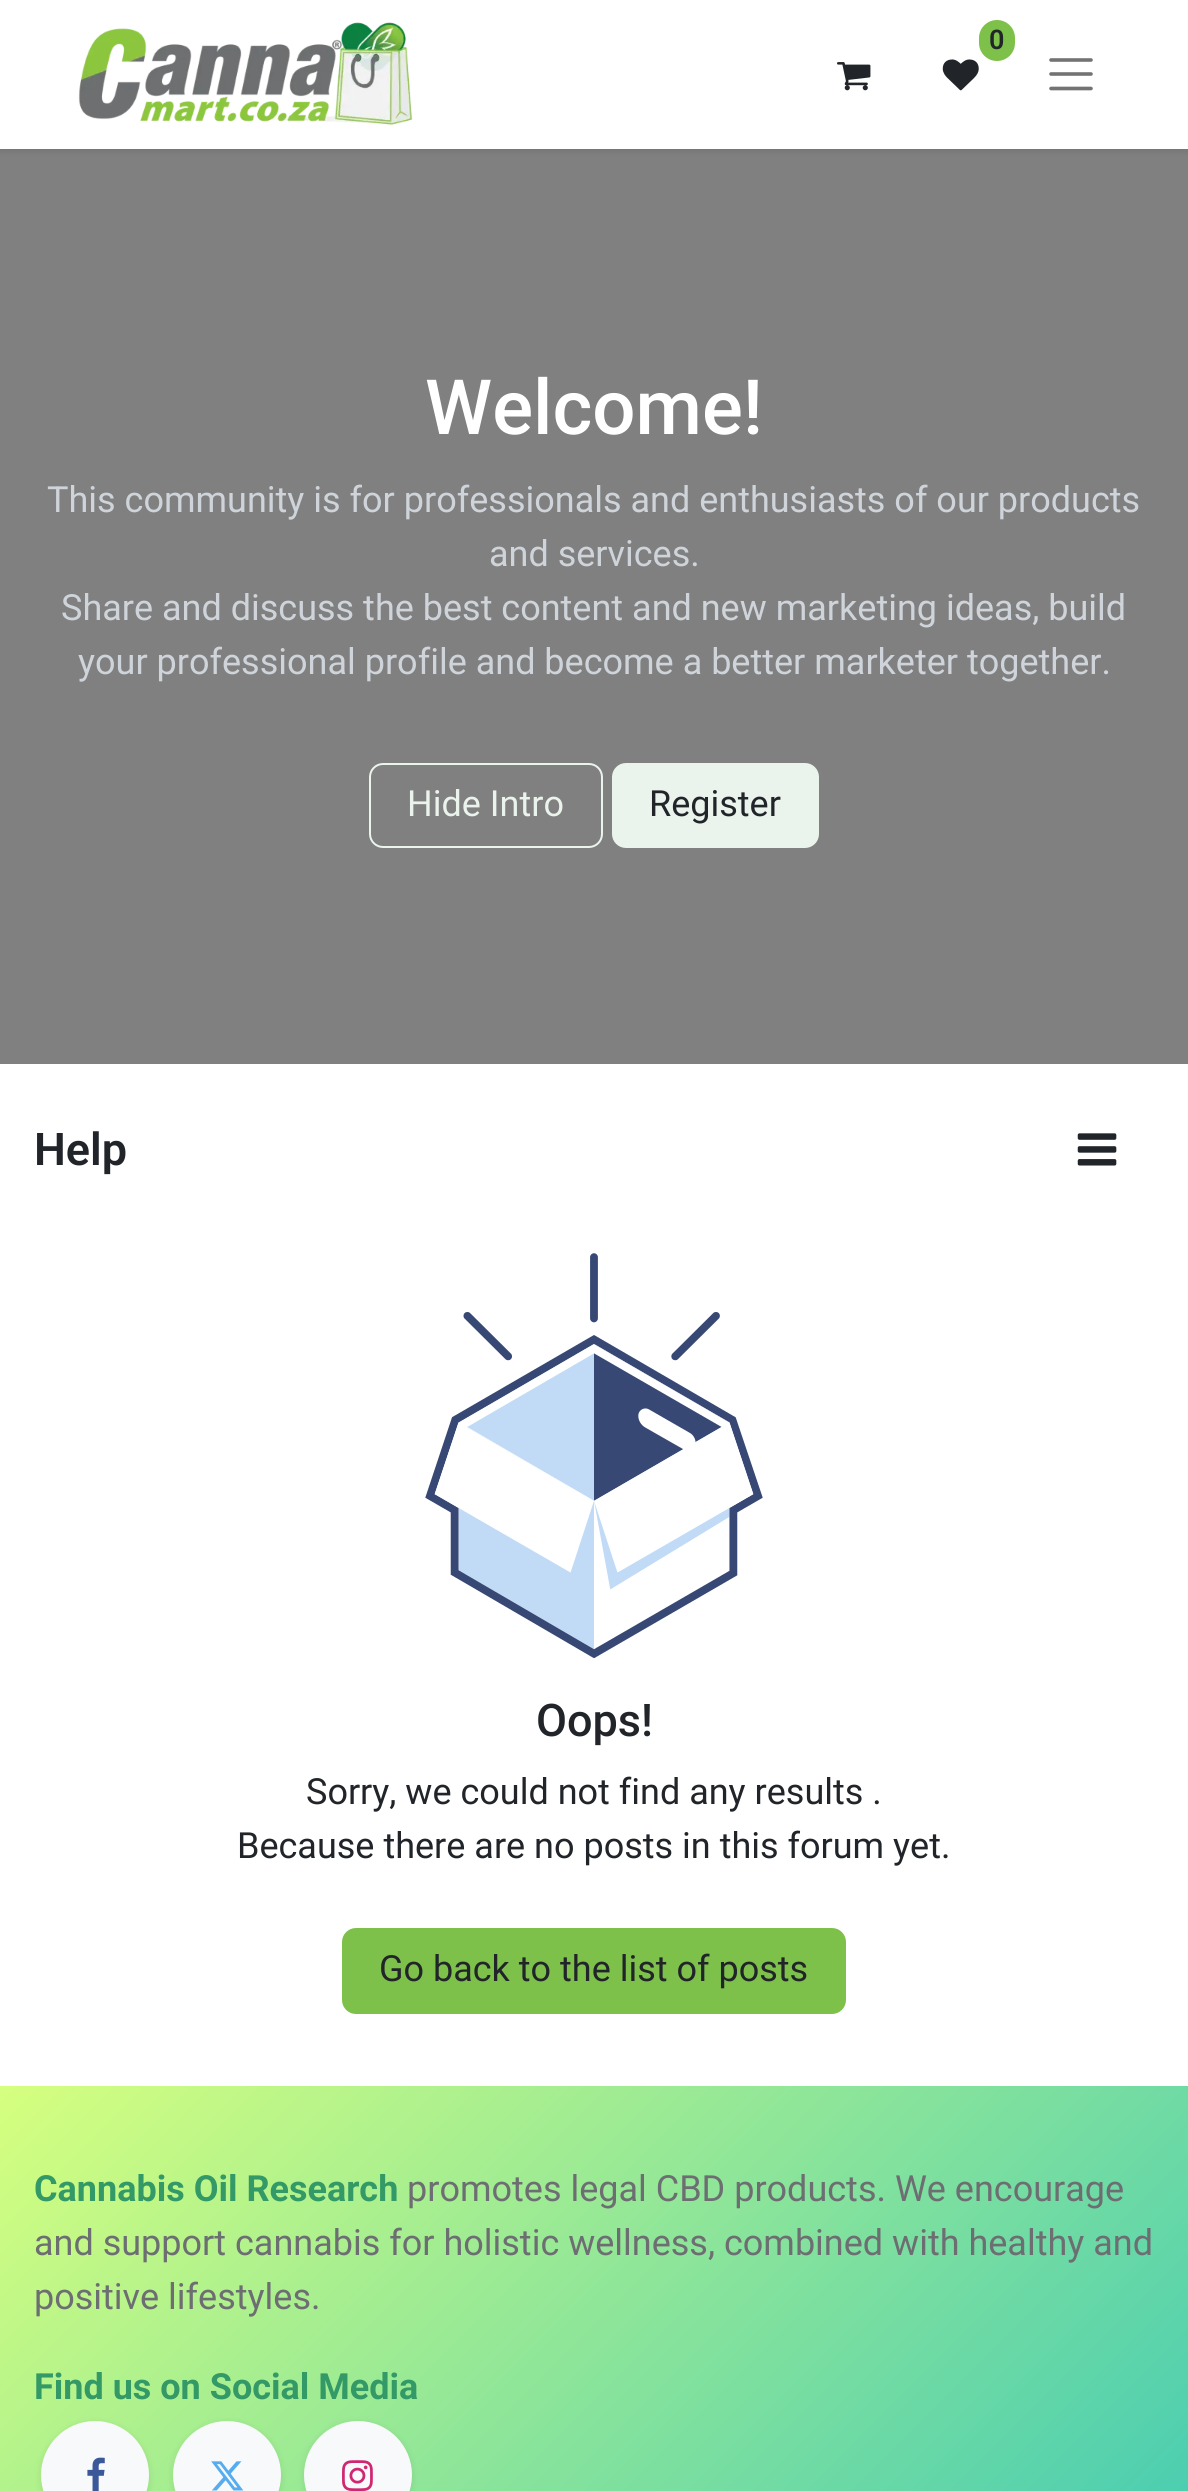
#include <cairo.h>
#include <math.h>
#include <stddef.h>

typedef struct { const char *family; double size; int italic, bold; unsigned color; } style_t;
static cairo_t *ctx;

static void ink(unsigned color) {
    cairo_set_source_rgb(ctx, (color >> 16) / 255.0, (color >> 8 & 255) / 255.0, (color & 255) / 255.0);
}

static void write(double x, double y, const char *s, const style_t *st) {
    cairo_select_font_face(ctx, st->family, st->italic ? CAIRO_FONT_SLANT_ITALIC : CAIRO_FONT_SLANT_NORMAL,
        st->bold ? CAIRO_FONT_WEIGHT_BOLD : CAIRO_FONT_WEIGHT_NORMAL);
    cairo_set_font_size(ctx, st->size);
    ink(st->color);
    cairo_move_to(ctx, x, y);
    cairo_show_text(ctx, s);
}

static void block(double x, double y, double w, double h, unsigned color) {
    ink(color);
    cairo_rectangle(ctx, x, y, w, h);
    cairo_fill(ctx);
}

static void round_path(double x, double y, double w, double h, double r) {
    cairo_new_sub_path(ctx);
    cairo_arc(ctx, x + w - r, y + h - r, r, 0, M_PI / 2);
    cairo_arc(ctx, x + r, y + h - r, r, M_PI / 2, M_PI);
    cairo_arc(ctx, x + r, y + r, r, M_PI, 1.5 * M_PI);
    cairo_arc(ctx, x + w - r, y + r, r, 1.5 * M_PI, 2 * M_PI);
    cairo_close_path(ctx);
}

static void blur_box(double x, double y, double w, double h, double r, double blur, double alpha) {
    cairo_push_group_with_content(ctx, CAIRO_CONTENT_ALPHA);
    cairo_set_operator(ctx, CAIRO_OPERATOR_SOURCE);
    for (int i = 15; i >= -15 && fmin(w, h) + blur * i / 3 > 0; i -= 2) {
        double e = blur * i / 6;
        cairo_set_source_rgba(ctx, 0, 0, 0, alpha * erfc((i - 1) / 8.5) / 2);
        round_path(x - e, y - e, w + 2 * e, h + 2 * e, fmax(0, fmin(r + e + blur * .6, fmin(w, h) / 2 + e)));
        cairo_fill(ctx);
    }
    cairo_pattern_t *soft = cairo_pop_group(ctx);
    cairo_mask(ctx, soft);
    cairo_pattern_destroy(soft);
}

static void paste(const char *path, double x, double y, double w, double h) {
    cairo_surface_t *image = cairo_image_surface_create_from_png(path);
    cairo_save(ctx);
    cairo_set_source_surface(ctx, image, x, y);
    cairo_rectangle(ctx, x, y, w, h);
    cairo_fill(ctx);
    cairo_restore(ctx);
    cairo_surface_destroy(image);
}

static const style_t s1 = {"Roboto SemiBold", 27, 0, 0, 0x212529};
static const style_t s2 = {"Roboto Medium", 76.25, 0, 0, 0xffffff};
static const style_t s3 = {"Roboto", 36, 0, 0, 0xced4da};
static const style_t s4 = {"Roboto", 36, 0, 0, 0xeaf3ec};
static const style_t s5 = {"Roboto", 36, 0, 0, 0x212529};
static const style_t s6 = {"Roboto SemiBold", 45, 0, 0, 0x212529};
static const style_t s7 = {"Roboto Medium", 45, 0, 0, 0x212529};
static const style_t s8 = {"Roboto", 36, 0, 1, 0x339966};
static const style_t s9 = {"Roboto", 36, 0, 0, 0x6d6e72};

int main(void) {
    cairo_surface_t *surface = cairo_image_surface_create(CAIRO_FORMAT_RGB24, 1188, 2491);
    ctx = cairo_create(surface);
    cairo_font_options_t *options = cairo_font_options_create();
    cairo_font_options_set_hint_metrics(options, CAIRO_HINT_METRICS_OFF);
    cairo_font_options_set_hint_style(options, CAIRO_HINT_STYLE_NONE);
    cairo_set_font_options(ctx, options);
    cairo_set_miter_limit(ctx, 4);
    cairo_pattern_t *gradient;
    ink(0xffffff);
    cairo_paint(ctx);
    block(0, 149, 1188, 915, 0x808080);
    ink(0x000000);
    blur_box(0, 2, 1188, 149, 0, 3.5, 0.1);
    block(0, 0, 1188, 149, 0xffffff);
    paste("pic1.png", 78, 22, 335, 103);
    ink(0x7ec14a);
    round_path(979, 20, 36, 41, 18);
    cairo_fill(ctx);
    write(989, 49, "0", &s1);
    paste("pic2.png", 942, 59, 37, 32);
    paste("pic3.png", 837, 62, 34, 29);
    cairo_new_path(ctx);
    cairo_move_to(ctx, 1051, 60);
    cairo_line_to(ctx, 1091, 60);
    cairo_move_to(ctx, 1051, 74);
    cairo_line_to(ctx, 1091, 74);
    cairo_move_to(ctx, 1051, 88.5);
    cairo_line_to(ctx, 1091, 88.5);
    ink(0x737373);
    cairo_set_line_width(ctx, 3.6);
    cairo_set_line_cap(ctx, CAIRO_LINE_CAP_ROUND);
    cairo_stroke(ctx);
    write(425, 434, "Welcome!", &s2);
    write(47, 512, "This community is for professionals and enthusiasts of our products", &s3);
    write(489, 566, "and services.", &s3);
    write(61, 620, "Share and discuss the best content and new marketing ideas, build", &s3);
    write(78, 674, "your professional profile and become a better marketer together.", &s3);
    round_path(370, 764, 232, 83, 13);
    ink(0xeaf3ec);
    cairo_set_line_width(ctx, 2);
    cairo_set_line_cap(ctx, CAIRO_LINE_CAP_BUTT);
    cairo_stroke(ctx);
    write(407, 816, "Hide Intro", &s4);
    round_path(613, 764, 205, 83, 13);
    cairo_fill_preserve(ctx);
    cairo_stroke(ctx);
    write(649, 816, "Register", &s5);
    write(34, 1165, "Help", &s6);
    paste("pic4.png", 1077, 1133, 40, 33);
    paste("pic5.png", 425, 1253, 338, 405);
    write(536, 1736, "Oops!", &s7);
    write(306, 1804, "Sorry, we could not find any results .", &s5);
    write(237, 1858, "Because there are no posts in this forum yet.", &s5);
    ink(0x7ec14a);
    round_path(343, 1929, 502, 84, 13);
    cairo_fill_preserve(ctx);
    cairo_stroke(ctx);
    write(379, 1981, "Go back to the list of posts", &s5);
    gradient = cairo_pattern_create_linear(-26, 2112, 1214, 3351);
    cairo_pattern_add_color_stop_rgba(gradient, 0, 0.839, 1, 0.498, 1);
    cairo_pattern_add_color_stop_rgba(gradient, 1, 0, 0.702, 0.8, 1);
    cairo_set_source(ctx, gradient);
    cairo_pattern_destroy(gradient);
    cairo_rectangle(ctx, 0, 2086, 1188, 405);
    cairo_fill(ctx);
    write(34, 2201, "Cannabis Oil Research", &s8);
    write(407, 2201, "promotes legal CBD products. We encourage", &s9);
    write(34, 2255, "and support cannabis for holistic wellness, combined with healthy and", &s9);
    write(34, 2309, "positive lifestyles.", &s9);
    write(34, 2399, "Find us on Social Media", &s8);
    ink(0x000000);
    blur_box(41, 2423, 108, 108, 54, 3.5, 0.1);
    ink(0xf8f9fa);
    cairo_arc(ctx, 95, 2475, 54, 0, 2 * M_PI);
    cairo_fill(ctx);
    paste("pic6.png", 87, 2457, 18, 34);
    ink(0x000000);
    blur_box(173, 2423, 108, 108, 54, 3.5, 0.1);
    ink(0xf8f9fa);
    cairo_arc(ctx, 227, 2475, 54, 0, 2 * M_PI);
    cairo_fill(ctx);
    paste("pic7.png", 211, 2461, 33, 30);
    ink(0x000000);
    blur_box(304, 2423, 108, 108, 54, 3.5, 0.1);
    ink(0xf8f9fa);
    cairo_arc(ctx, 358, 2475, 54, 0, 2 * M_PI);
    cairo_fill(ctx);
    paste("pic8.png", 342, 2460, 31, 31);
    cairo_surface_write_to_png(surface, "screenshot.png");
    cairo_font_options_destroy(options);
    cairo_destroy(ctx);
    cairo_surface_destroy(surface);
    return 0;
}
